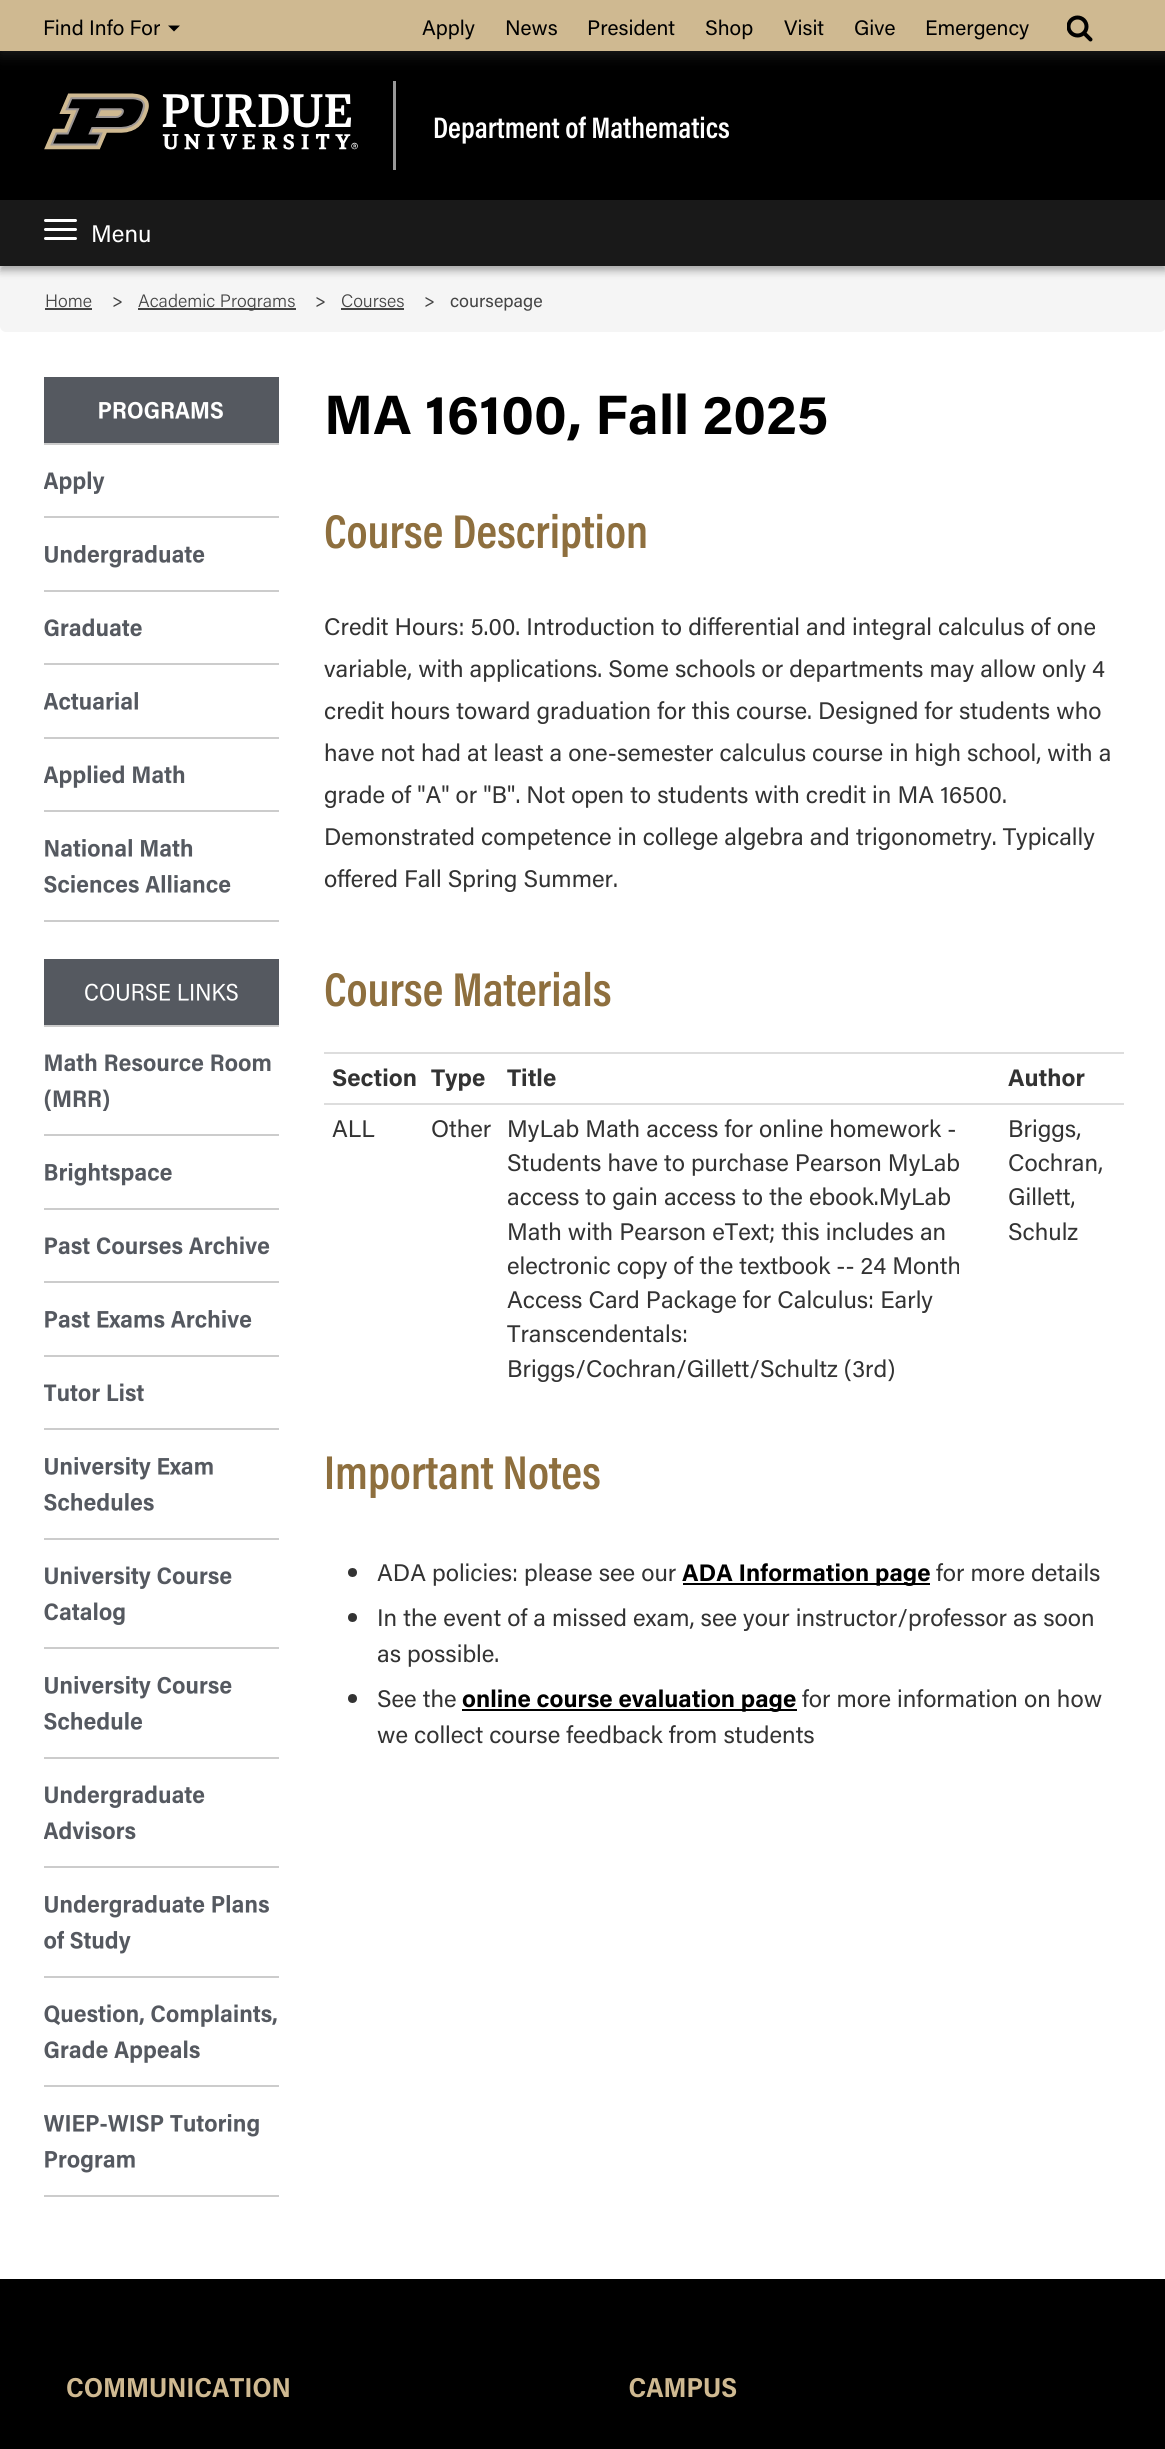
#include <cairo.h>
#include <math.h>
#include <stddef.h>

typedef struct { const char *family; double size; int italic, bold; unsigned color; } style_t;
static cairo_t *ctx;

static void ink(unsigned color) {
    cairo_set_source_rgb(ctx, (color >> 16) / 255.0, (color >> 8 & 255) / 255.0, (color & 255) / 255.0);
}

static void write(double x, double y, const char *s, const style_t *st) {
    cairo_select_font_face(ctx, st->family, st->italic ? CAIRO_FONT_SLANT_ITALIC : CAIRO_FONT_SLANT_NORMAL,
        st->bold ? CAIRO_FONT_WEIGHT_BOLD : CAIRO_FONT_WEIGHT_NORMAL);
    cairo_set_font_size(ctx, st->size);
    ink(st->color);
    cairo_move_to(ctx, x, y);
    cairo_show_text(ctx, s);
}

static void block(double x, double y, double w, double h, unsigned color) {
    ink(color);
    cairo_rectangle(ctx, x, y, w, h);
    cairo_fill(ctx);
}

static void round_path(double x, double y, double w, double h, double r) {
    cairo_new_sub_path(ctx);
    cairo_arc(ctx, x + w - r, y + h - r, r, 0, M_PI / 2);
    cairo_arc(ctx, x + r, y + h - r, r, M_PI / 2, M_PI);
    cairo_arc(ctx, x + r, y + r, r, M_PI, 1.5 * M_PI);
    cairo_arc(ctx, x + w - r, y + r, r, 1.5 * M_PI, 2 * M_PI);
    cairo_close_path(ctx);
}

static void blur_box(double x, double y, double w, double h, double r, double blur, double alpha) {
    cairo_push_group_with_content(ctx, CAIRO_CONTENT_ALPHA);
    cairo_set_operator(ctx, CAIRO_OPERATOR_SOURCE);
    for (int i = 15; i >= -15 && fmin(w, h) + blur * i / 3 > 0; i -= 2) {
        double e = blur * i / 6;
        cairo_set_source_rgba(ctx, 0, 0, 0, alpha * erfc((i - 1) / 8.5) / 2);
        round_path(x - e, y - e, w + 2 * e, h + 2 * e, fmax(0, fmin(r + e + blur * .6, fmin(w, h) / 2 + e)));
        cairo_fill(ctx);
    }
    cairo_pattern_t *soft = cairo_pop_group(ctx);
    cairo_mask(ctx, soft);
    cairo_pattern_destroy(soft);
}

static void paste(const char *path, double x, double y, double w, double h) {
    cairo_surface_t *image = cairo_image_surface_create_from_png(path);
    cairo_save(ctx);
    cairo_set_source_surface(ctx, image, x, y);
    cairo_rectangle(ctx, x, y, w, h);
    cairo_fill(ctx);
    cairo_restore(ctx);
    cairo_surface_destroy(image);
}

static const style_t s1 = {"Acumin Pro", 21, 0, 0, 0x000000};
static const style_t s2 = {"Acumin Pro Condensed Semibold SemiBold", 30, 0, 0, 0xffffff};
static const style_t s3 = {"Acumin Pro", 24, 0, 0, 0xffffff};
static const style_t s4 = {"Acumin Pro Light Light", 18, 0, 0, 0x444444};
static const style_t s5 = {"Acumin Pro", 18, 0, 0, 0x444444};
static const style_t s6 = {"Acumin Pro", 55.5, 0, 1, 0x000000};
static const style_t s7 = {"Acumin Pro Condensed Semibold SemiBold", 48, 0, 0, 0x8e6f3e};
static const style_t s8 = {"Acumin Pro", 24, 0, 0, 0x333333};
static const style_t s9 = {"Acumin Pro", 24, 0, 1, 0x333333};
static const style_t s10 = {"Acumin Pro", 24, 0, 1, 0x000000};

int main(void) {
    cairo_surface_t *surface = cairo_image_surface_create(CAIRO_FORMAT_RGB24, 1165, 2449);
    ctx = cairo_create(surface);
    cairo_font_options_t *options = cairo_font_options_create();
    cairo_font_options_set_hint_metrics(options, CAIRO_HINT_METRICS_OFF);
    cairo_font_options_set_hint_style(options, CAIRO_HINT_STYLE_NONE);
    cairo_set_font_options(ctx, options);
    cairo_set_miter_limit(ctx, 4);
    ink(0xffffff);
    cairo_paint(ctx);
    block(0, 51, 1165, 149, 0x000000);
    ink(0x1e1e1e);
    blur_box(0, 3, 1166, 51, 0, 7.5, 1);
    block(0, 0, 1165, 51, 0xcfb991);
    write(43, 35, "Find Info For", &s1);
    cairo_new_path(ctx);
    cairo_move_to(ctx, 168, 25.5);
    cairo_line_to(ctx, 180, 25.5);
    cairo_line_to(ctx, 174, 31.5);
    cairo_close_path(ctx);
    cairo_fill(ctx);
    write(422, 35, "Apply", &s1);
    write(505, 35, "News", &s1);
    write(587, 35, "President", &s1);
    write(705, 35, "Shop", &s1);
    write(784, 35, "Visit", &s1);
    write(854, 35, "Give", &s1);
    write(925, 35, "Emergency", &s1);
    paste("pic1.png", 1067, 15, 26, 27);
    paste("pic2.png", 44, 93, 314, 57);
    block(393, 81, 3, 89, 0x999999);
    write(433, 138, "Department of Mathematics", &s2);
    ink(0xf5f5f5);
    round_path(0, 266, 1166, 66, 6);
    cairo_fill(ctx);
    cairo_save(ctx);
    cairo_set_fill_rule(ctx, CAIRO_FILL_RULE_EVEN_ODD);
    cairo_new_path(ctx);
    cairo_move_to(ctx, 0, 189);
    cairo_line_to(ctx, 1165, 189);
    cairo_line_to(ctx, 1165, 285);
    cairo_line_to(ctx, 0, 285);
    cairo_close_path(ctx);
    cairo_move_to(ctx, 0, 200);
    cairo_line_to(ctx, 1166, 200);
    cairo_line_to(ctx, 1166, 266);
    cairo_line_to(ctx, 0, 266);
    cairo_close_path(ctx);
    cairo_clip(ctx);
    ink(0x000000);
    blur_box(0, 204, 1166, 66, 0, 4.5, 0.23);
    blur_box(0, 204, 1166, 66, 0, 4.5, 0.16);
    cairo_restore(ctx);
    cairo_set_source_rgba(ctx, 0, 0, 0, 0.9);
    cairo_rectangle(ctx, 0, 200, 1165, 66);
    cairo_fill(ctx);
    ink(0xffffff);
    round_path(44, 219, 33, 3, 1.5);
    cairo_fill(ctx);
    round_path(44, 228, 33, 3, 1.5);
    cairo_fill(ctx);
    write(91, 242, "Menu", &s3);
    round_path(44, 237, 33, 3, 1.5);
    cairo_fill(ctx);
    write(45, 307, "Home", &s4);
    block(45, 308, 47, 2, 0x444444);
    write(112, 307, ">", &s5);
    block(138, 308, 158, 2, 0x444444);
    write(138, 307, "Academic Programs", &s4);
    write(315, 307, ">", &s5);
    write(341, 307, "Courses", &s4);
    block(341, 308, 63, 2, 0x444444);
    write(424, 307, ">", &s5);
    write(450, 307, "coursepage", &s5);
    block(44, 377, 235, 66, 0x555960);
    block(44, 443, 235, 2, 0xcccccc);
    paste("pic3.png", 99, 401, 124, 18);
    block(44, 516, 235, 2, 0xcccccc);
    paste("pic4.png", 44, 471, 61, 23);
    block(44, 590, 235, 2, 0xcccccc);
    paste("pic5.png", 45, 545, 160, 23);
    block(44, 663, 235, 2, 0xcccccc);
    paste("pic6.png", 44, 618, 98, 19);
    block(44, 737, 235, 2, 0xcccccc);
    paste("pic7.png", 44, 692, 94, 18);
    block(44, 810, 235, 2, 0xcccccc);
    paste("pic8.png", 44, 765, 141, 23);
    block(44, 920, 235, 2, 0xcccccc);
    paste("pic9.png", 45, 839, 148, 18);
    paste("pic10.png", 44, 875, 187, 18);
    block(44, 959, 235, 66, 0x555960);
    block(44, 1025, 235, 2, 0xcccccc);
    paste("pic11.png", 85, 983, 153, 18);
    block(44, 1134, 235, 2, 0xcccccc);
    paste("pic12.png", 45, 1053, 226, 19);
    paste("pic13.png", 44, 1089, 66, 22);
    block(44, 1208, 235, 2, 0xcccccc);
    paste("pic14.png", 45, 1163, 127, 23);
    block(44, 1281, 235, 2, 0xcccccc);
    paste("pic15.png", 45, 1236, 225, 19);
    block(44, 1355, 235, 2, 0xcccccc);
    paste("pic16.png", 45, 1310, 207, 18);
    block(44, 1428, 235, 2, 0xcccccc);
    paste("pic17.png", 44, 1383, 100, 19);
    block(44, 1538, 235, 2, 0xcccccc);
    paste("pic18.png", 45, 1457, 168, 23);
    paste("pic19.png", 44, 1493, 110, 18);
    block(44, 1647, 235, 2, 0xcccccc);
    paste("pic20.png", 45, 1566, 187, 23);
    paste("pic21.png", 44, 1602, 81, 23);
    block(44, 1757, 235, 2, 0xcccccc);
    paste("pic22.png", 45, 1676, 187, 23);
    paste("pic23.png", 44, 1712, 99, 18);
    block(44, 1866, 235, 2, 0xcccccc);
    paste("pic24.png", 45, 1785, 160, 23);
    paste("pic25.png", 44, 1821, 92, 19);
    block(44, 1976, 235, 2, 0xcccccc);
    paste("pic26.png", 45, 1895, 224, 23);
    paste("pic27.png", 44, 1930, 87, 24);
    block(44, 2085, 235, 2, 0xcccccc);
    paste("pic28.png", 44, 2004, 233, 23);
    paste("pic29.png", 44, 2040, 156, 23);
    block(44, 2195, 235, 2, 0xcccccc);
    paste("pic30.png", 44, 2114, 215, 23);
    paste("pic31.png", 45, 2151, 90, 22);
    write(324, 434, "MA 16100, Fall 2025", &s6);
    write(324, 548, "Course Description", &s7);
    write(324, 635, "Credit Hours: 5.00. Introduction to differential and integral calculus of one", &s8);
    write(324, 677, "variable, with applications. Some schools or departments may allow only 4", &s8);
    write(324, 719, "credit hours toward graduation for this course. Designed for students who", &s8);
    write(324, 761, "have not had at least a one-semester calculus course in high school, with a", &s8);
    write(324, 803, "grade of \"A\" or \"B\". Not open to students with credit in MA 16500.", &s8);
    write(324, 845, "Demonstrated competence in college algebra and trigonometry. Typically", &s8);
    write(324, 887, "offered Fall Spring Summer.", &s8);
    write(324, 1006, "Course Materials", &s7);
    write(332, 1086, "Section", &s9);
    write(431, 1086, "Type", &s9);
    write(507, 1086, "Title", &s9);
    block(324, 1052, 800, 2, 0xdddddd);
    write(1008, 1086, "Author", &s9);
    write(332, 1137, "ALL", &s8);
    write(431, 1137, "Other", &s8);
    write(507, 1137, "MyLab Math access for online homework -", &s8);
    write(507, 1171, "Students have to purchase Pearson MyLab", &s8);
    write(507, 1205, "access to gain access to the ebook.MyLab", &s8);
    write(507, 1240, "Math with Pearson eText; this includes an", &s8);
    write(507, 1274, "electronic copy of the textbook -- 24 Month", &s8);
    write(507, 1308, "Access Card Package for Calculus: Early", &s8);
    write(507, 1342, "Transcendentals:", &s8);
    write(507, 1377, "Briggs/Cochran/Gillett/Schultz (3rd)", &s8);
    block(324, 1103, 800, 2, 0xdddddd);
    write(1008, 1137, "Briggs,", &s8);
    write(1008, 1171, "Cochran,", &s8);
    write(1008, 1205, "Gillett,", &s8);
    write(1008, 1240, "Schulz", &s8);
    write(324, 1489, "Important Notes", &s7);
    ink(0x333333);
    cairo_new_path(ctx);
    cairo_arc(ctx, 352.5, 1572.5, 4.5, 0, 2 * M_PI);
    cairo_fill(ctx);
    write(377, 1581, "ADA policies: please see our", &s8);
    block(683, 1583, 247, 2, 0x000000);
    write(682, 1581, "ADA Information page", &s10);
    write(936, 1581, "for more details", &s8);
    cairo_new_path(ctx);
    cairo_arc(ctx, 352.5, 1617.5, 4.5, 0, 2 * M_PI);
    cairo_fill(ctx);
    write(377, 1626, "In the event of a missed exam, see your instructor/professor as soon", &s8);
    write(377, 1662, "as possible.", &s8);
    cairo_new_path(ctx);
    cairo_arc(ctx, 352.5, 1698.5, 4.5, 0, 2 * M_PI);
    cairo_fill(ctx);
    write(377, 1707, "See the", &s8);
    block(462, 1709, 335, 2, 0x000000);
    write(462, 1707, "online course evaluation page", &s10);
    write(802, 1707, "for more information on how", &s8);
    write(377, 1743, "we collect course feedback from students", &s8);
    block(0, 2279, 1165, 170, 0x000000);
    paste("pic32.png", 67, 2377, 222, 21);
    paste("pic33.png", 629, 2377, 108, 21);
    cairo_surface_write_to_png(surface, "screenshot.png");
    cairo_font_options_destroy(options);
    cairo_destroy(ctx);
    cairo_surface_destroy(surface);
    return 0;
}
